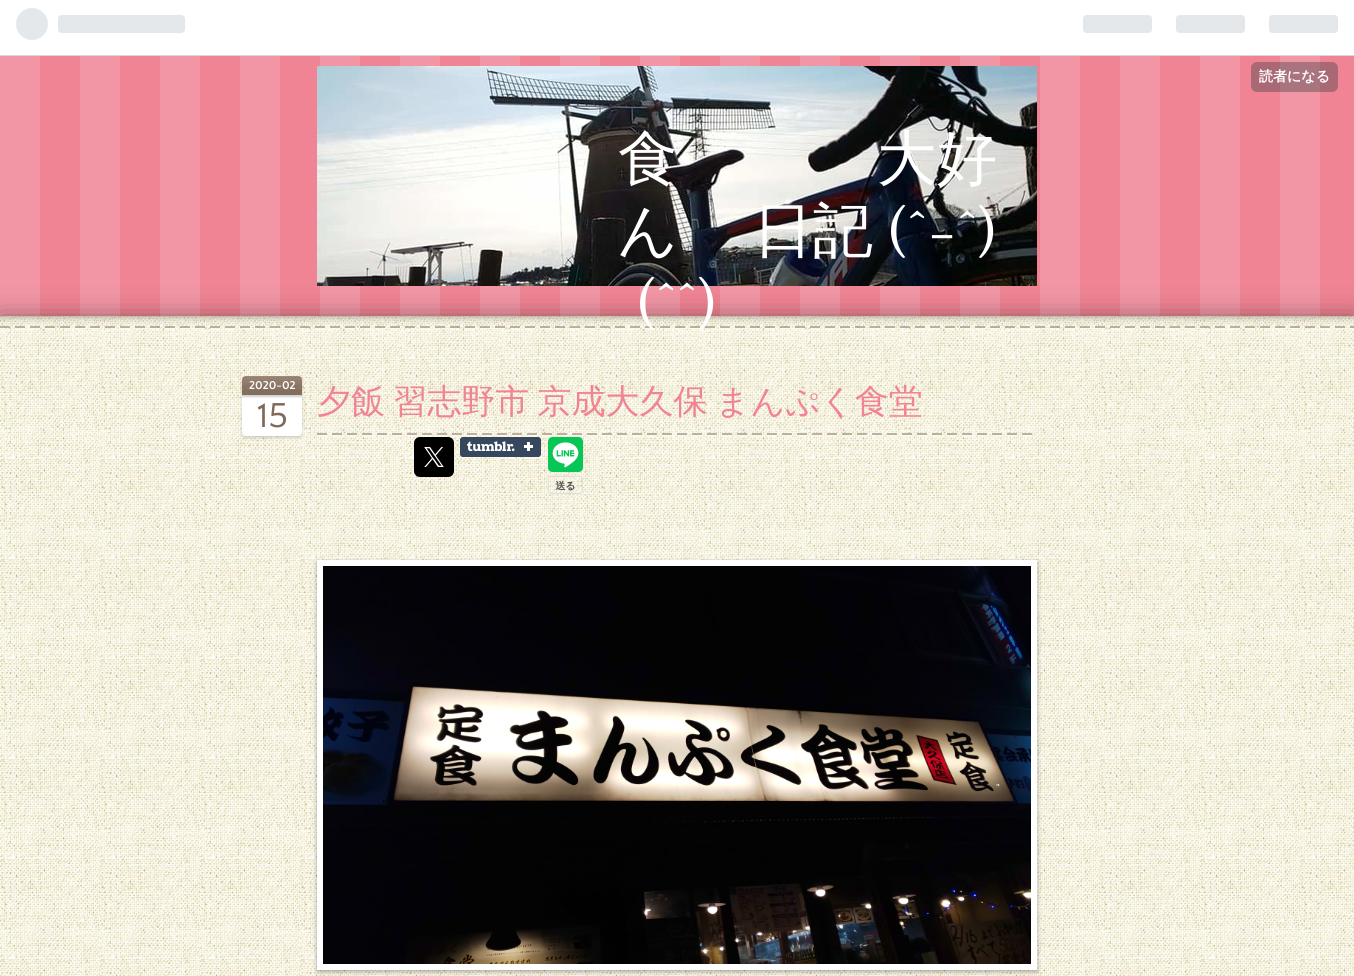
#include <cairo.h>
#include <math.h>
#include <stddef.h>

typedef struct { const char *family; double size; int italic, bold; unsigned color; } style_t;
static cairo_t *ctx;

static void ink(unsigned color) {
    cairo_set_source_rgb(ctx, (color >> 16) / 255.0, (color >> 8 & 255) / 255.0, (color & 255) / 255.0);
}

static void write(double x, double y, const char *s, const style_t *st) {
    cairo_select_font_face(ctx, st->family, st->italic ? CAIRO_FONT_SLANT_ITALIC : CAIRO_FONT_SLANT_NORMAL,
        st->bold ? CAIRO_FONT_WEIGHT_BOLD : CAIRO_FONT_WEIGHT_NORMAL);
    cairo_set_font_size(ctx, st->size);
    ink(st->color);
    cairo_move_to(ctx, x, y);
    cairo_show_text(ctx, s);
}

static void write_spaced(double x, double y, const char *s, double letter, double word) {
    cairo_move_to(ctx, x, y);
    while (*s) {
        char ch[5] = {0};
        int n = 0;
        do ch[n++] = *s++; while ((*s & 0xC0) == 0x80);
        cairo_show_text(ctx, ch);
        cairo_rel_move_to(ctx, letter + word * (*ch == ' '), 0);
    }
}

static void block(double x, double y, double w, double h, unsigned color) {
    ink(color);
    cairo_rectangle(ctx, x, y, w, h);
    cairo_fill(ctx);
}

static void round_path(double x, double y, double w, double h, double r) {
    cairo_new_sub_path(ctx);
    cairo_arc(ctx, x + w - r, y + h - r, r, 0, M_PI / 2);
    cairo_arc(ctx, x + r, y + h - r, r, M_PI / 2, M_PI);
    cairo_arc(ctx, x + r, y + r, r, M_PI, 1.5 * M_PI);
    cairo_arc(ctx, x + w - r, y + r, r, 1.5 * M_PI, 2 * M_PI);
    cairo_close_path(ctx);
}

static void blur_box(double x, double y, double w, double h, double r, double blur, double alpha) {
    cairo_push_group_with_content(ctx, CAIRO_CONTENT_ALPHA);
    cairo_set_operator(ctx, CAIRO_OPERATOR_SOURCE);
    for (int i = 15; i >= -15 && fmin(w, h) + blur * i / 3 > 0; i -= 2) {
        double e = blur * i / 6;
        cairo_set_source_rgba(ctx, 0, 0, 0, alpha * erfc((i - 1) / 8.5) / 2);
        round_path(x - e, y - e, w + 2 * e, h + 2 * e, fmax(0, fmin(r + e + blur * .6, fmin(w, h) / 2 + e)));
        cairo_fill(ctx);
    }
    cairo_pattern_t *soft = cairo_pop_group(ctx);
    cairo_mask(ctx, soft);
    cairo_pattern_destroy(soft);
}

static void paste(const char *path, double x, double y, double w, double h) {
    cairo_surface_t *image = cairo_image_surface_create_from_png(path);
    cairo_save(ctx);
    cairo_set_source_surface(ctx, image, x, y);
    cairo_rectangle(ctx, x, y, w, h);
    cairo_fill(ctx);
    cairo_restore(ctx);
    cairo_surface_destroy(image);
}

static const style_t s1 = {"WenQuanYi Zen Hei", 14, 0, 1, 0xffffff};
static const style_t s2 = {"WenQuanYi Zen Hei Medium", 60, 0, 0, 0xffffff};
static const style_t s3 = {"Quattrocento Sans", 60, 0, 0, 0xffffff};
static const style_t s4 = {"Quattrocento Sans", 12, 0, 1, 0xffffff};
static const style_t s5 = {"Quattrocento Sans", 36, 0, 0, 0x816a59};

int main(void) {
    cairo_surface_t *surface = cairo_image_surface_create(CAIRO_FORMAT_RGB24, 1354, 976);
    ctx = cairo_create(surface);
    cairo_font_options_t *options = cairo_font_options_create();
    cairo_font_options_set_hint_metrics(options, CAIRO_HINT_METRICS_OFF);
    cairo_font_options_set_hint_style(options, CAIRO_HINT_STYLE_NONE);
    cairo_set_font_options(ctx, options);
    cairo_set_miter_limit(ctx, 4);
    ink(0xf08495);
    cairo_paint(ctx);
    paste("pic1.png", 0, 56, 1320, 260);
    block(0, 0, 1354, 55, 0xffffff);
    block(0, 55, 1354, 1, 0xd2d8dd);
    paste("pic2.png", 16, 8, 169, 32);
    paste("pic3.png", 1083, 15, 255, 18);
    cairo_set_source_rgba(ctx, 0.239, 0.259, 0.271, 0.4);
    round_path(1251, 62, 87, 30, 6);
    cairo_fill(ctx);
    write(1259, 81, "読者になる", &s1);
    ink(0x000000);
    blur_box(0, 321, 1354, 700, 0, 15, 0.5);
    paste("pic4.png", 317, 66, 720, 220);
    cairo_select_font_face(ctx, "WenQuanYi Zen Hei Medium", CAIRO_FONT_SLANT_NORMAL, CAIRO_FONT_WEIGHT_NORMAL);
    cairo_set_font_size(ctx, 60);
    ink(0xffffff);
    write_spaced(618, 179, "食", 0, -3);
    write_spaced(877, 179, "大好", 0, -3);
    write_spaced(617, 251, "ん", 0, -3);
    write(753, 251, "日記", &s2);
    write(888, 251, "(^-^)", &s3);
    paste("pic5.png", 0, 316, 1354, 660);
    paste("pic6.png", 0, 316, 1354, 14);
    write(637, 323, "(^^)", &s3);
    ink(0x000000);
    blur_box(242, 378, 60, 60, 4, 1.5, 0.15);
    ink(0xffffff);
    round_path(242, 376, 60, 60, 4);
    cairo_fill(ctx);
    paste("pic7.png", 242, 376, 60, 22);
    write(249, 389, "2020-02", &s4);
    write(257, 427, "15", &s5);
    paste("pic8.png", 317, 433, 715, 4);
    cairo_select_font_face(ctx, "WenQuanYi Zen Hei Medium", CAIRO_FONT_SLANT_NORMAL, CAIRO_FONT_WEIGHT_NORMAL);
    cairo_set_font_size(ctx, 34);
    ink(0xf08495);
    write_spaced(317, 413, "夕飯 習志野市 京成大久保 まんぷく食堂", 0, -2);
    ink(0x000000);
    round_path(414, 437, 40, 40, 6);
    cairo_fill(ctx);
    paste("pic9.png", 424, 447, 20, 20);
    paste("pic10.png", 460, 437, 81, 20);
    paste("pic11.png", 548, 437, 35, 57);
    ink(0x000000);
    blur_box(317, 562, 720, 410, 0, 2.5, 0.3);
    cairo_rectangle(ctx, 320, 563, 714, 404);
    ink(0xffffff);
    cairo_set_line_width(ctx, 6);
    cairo_stroke(ctx);
    paste("pic12.png", 323, 566, 708, 398);
    cairo_surface_write_to_png(surface, "screenshot.png");
    cairo_font_options_destroy(options);
    cairo_destroy(ctx);
    cairo_surface_destroy(surface);
    return 0;
}
